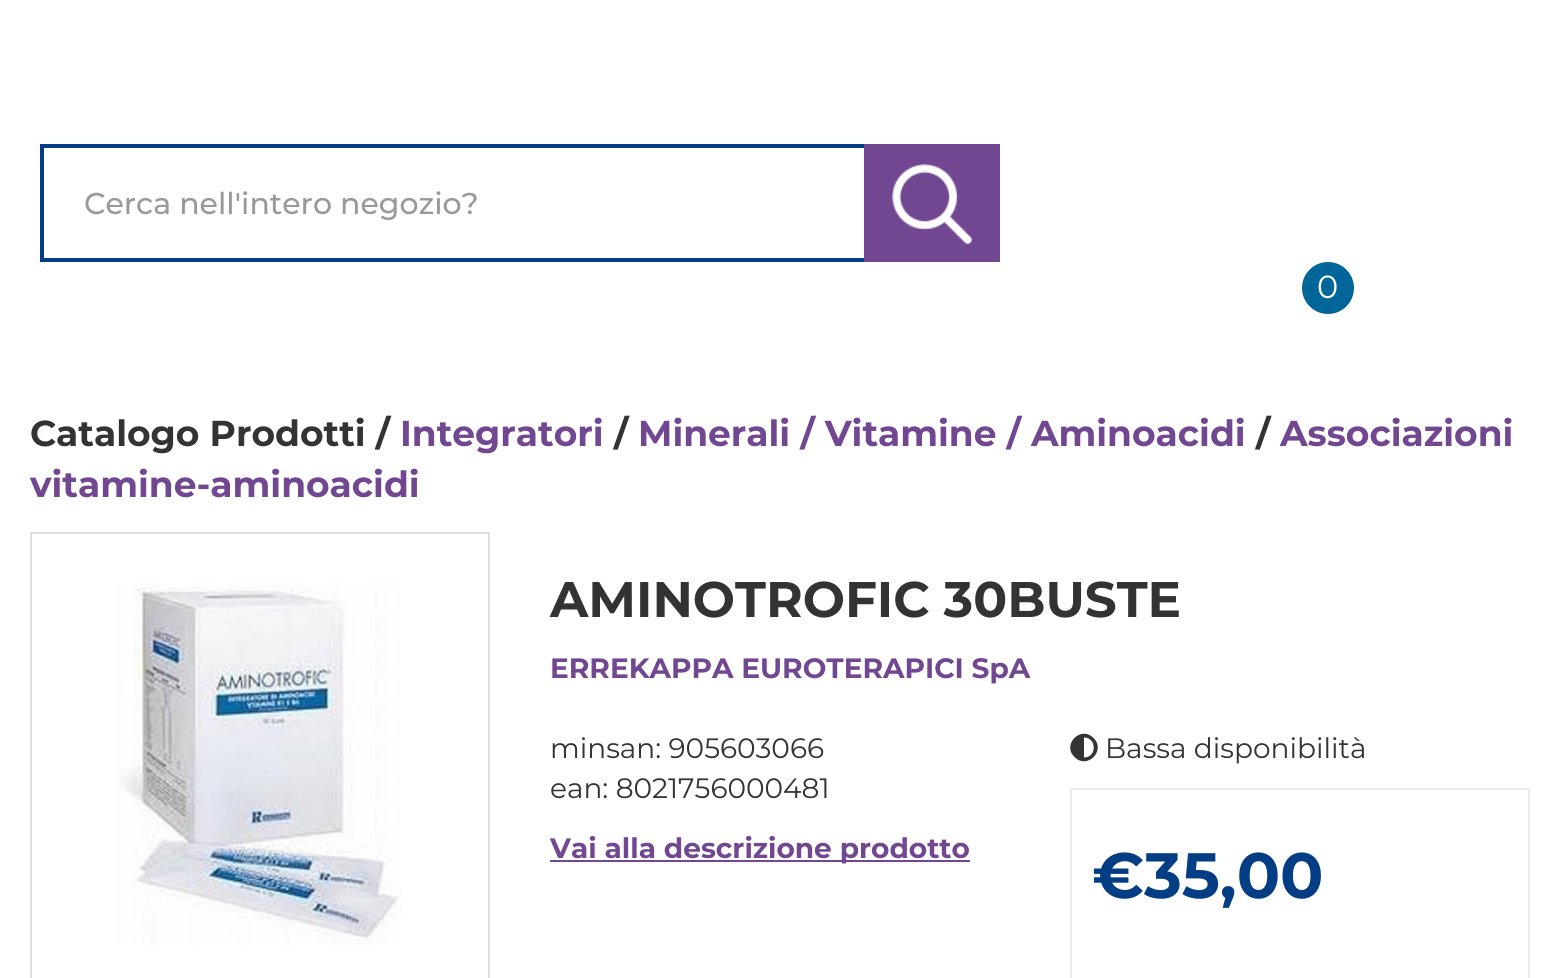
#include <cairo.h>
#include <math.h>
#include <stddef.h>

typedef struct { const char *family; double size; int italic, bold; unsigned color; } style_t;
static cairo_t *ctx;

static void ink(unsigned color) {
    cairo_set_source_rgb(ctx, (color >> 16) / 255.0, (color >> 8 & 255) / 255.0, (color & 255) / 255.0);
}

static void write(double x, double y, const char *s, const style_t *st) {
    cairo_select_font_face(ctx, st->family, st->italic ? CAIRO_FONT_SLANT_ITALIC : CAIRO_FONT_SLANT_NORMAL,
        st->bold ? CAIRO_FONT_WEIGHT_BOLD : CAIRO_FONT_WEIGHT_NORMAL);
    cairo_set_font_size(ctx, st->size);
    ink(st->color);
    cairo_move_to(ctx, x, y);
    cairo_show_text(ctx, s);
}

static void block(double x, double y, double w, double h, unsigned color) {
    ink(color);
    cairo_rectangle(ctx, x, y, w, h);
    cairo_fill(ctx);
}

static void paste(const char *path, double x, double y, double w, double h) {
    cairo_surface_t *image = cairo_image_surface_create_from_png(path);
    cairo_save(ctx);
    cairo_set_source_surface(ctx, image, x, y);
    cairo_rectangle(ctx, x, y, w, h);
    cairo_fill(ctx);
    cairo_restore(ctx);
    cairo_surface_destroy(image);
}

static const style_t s1 = {"Montserrat Medium", 30, 0, 0, 0x999999};
static const style_t s2 = {"Montserrat", 32, 0, 0, 0xffffff};
static const style_t s3 = {"Montserrat", 36, 0, 1, 0x333333};
static const style_t s4 = {"Montserrat", 36, 0, 1, 0x714791};
static const style_t s5 = {"Montserrat", 50, 0, 1, 0x333333};
static const style_t s6 = {"Montserrat", 28, 0, 1, 0x714791};
static const style_t s7 = {"Montserrat", 28, 0, 0, 0x333333};
static const style_t s8 = {"Montserrat", 64, 0, 1, 0x033e84};

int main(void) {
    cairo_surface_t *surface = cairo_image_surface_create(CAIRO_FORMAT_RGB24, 1560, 978);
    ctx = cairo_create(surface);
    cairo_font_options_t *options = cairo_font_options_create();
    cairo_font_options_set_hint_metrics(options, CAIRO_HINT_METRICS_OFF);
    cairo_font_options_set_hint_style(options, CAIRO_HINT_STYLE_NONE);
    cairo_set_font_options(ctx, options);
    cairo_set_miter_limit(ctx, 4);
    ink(0xffffff);
    cairo_paint(ctx);
    block(40, 144, 824, 4, 0x033e84);
    block(40, 258, 824, 4, 0x033e84);
    block(40, 144, 4, 118, 0x033e84);
    write(84, 214, "Cerca nell'intero negozio?", &s1);
    block(864, 144, 136, 118, 0x714791);
    paste("pic1.png", 892, 164, 80, 80);
    ink(0x006699);
    cairo_arc(ctx, 1328, 288, 26, 0, 2 * M_PI);
    cairo_fill(ctx);
    write(1317, 298, "0", &s2);
    write(30, 446, "Catalogo Prodotti /", &s3);
    write(400, 446, "Integratori", &s4);
    write(614, 446, "/", &s3);
    write(638, 446, "Minerali / Vitamine / Aminoacidi", &s4);
    write(1256, 446, "/", &s3);
    write(1280, 446, "Associazioni", &s4);
    write(30, 497, "vitamine-aminoacidi", &s4);
    cairo_rectangle(ctx, 31, 533, 458, 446);
    ink(0xdddddd);
    cairo_stroke(ctx);
    paste("pic2.png", 116, 583, 286, 362);
    write(550, 617, "AMINOTROFIC 30BUSTE", &s5);
    write(550, 678, "ERREKAPPA EUROTERAPICI SpA", &s6);
    write(550, 758, "minsan: 905603066", &s7);
    write(550, 798, "ean: 8021756000481", &s7);
    block(550, 860, 420, 2, 0x714791);
    write(550, 858, "Vai alla descrizione prodotto", &s6);
    ink(0x333333);
    cairo_new_path(ctx);
    cairo_move_to(ctx, 1074.5, 757);
    cairo_curve_to(ctx, 1061.5, 744.5, 1081, 725, 1093.5, 738);
    cairo_curve_to(ctx, 1106.5, 750.5, 1087, 770, 1074.5, 757);
    cairo_close_path(ctx);
    cairo_move_to(ctx, 1084, 757.5);
    cairo_curve_to(ctx, 1097, 757.5, 1097, 737.5, 1084, 737.5);
    cairo_close_path(ctx);
    cairo_fill(ctx);
    write(1105, 758, "Bassa disponibilità", &s7);
    cairo_rectangle(ctx, 1071, 789, 458, 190);
    ink(0xebebeb);
    cairo_stroke(ctx);
    write(1092, 898, "€35,00", &s8);
    cairo_surface_write_to_png(surface, "screenshot.png");
    cairo_font_options_destroy(options);
    cairo_destroy(ctx);
    cairo_surface_destroy(surface);
    return 0;
}
